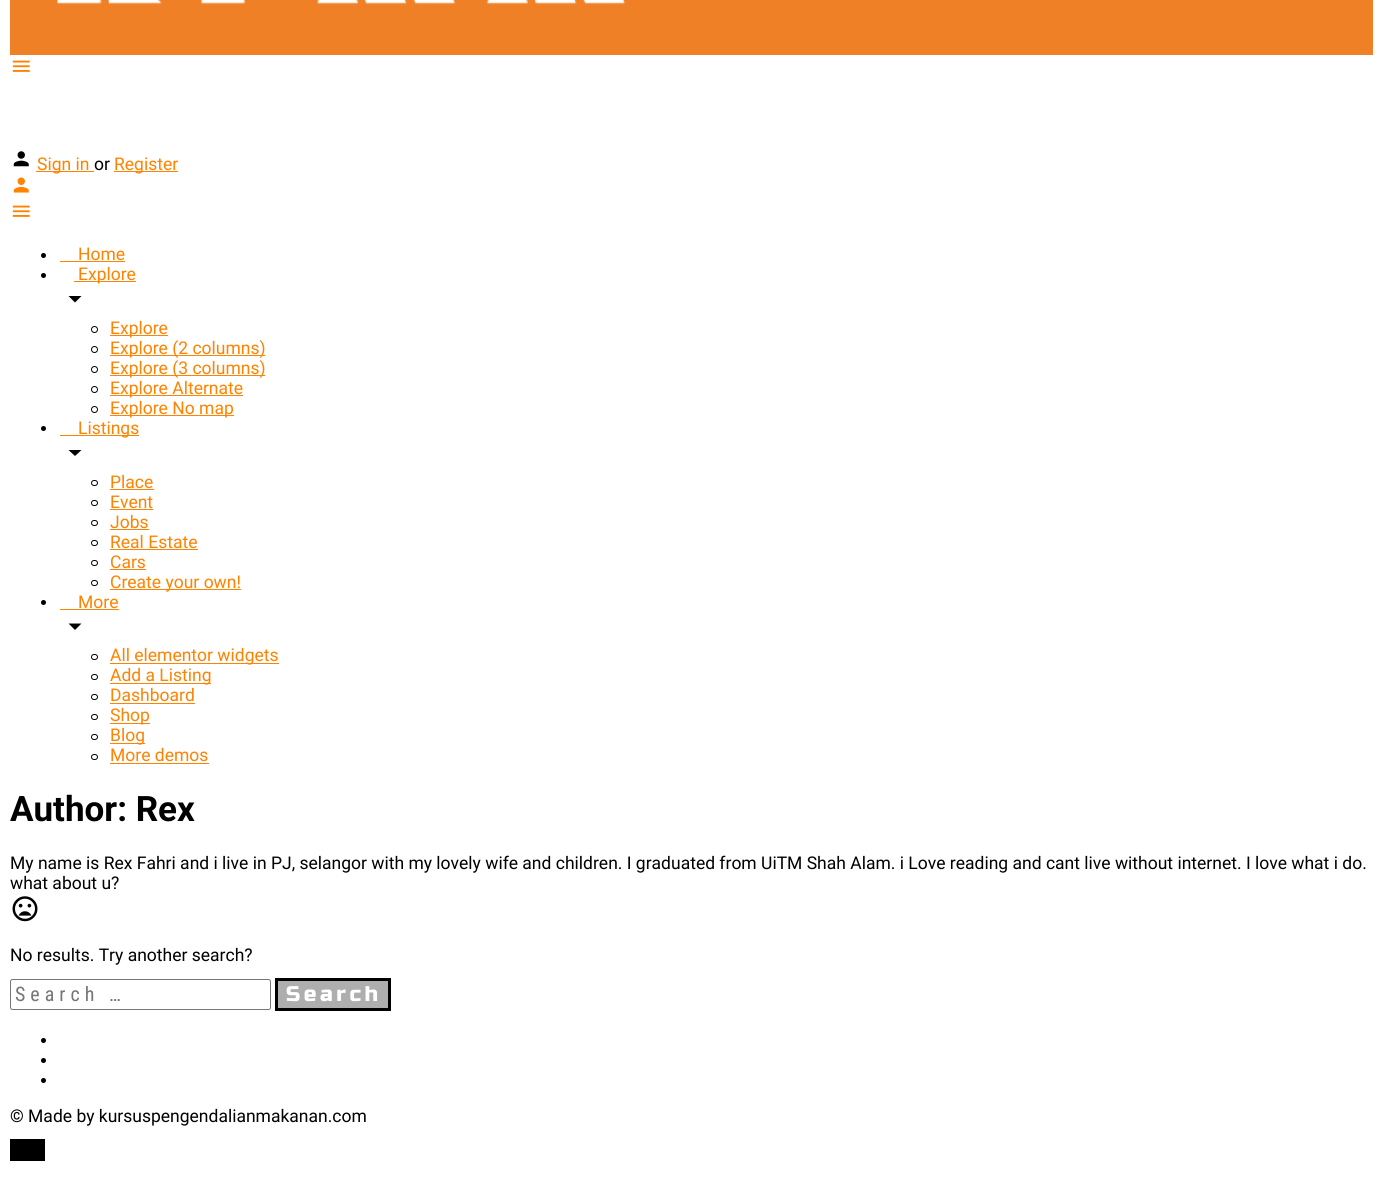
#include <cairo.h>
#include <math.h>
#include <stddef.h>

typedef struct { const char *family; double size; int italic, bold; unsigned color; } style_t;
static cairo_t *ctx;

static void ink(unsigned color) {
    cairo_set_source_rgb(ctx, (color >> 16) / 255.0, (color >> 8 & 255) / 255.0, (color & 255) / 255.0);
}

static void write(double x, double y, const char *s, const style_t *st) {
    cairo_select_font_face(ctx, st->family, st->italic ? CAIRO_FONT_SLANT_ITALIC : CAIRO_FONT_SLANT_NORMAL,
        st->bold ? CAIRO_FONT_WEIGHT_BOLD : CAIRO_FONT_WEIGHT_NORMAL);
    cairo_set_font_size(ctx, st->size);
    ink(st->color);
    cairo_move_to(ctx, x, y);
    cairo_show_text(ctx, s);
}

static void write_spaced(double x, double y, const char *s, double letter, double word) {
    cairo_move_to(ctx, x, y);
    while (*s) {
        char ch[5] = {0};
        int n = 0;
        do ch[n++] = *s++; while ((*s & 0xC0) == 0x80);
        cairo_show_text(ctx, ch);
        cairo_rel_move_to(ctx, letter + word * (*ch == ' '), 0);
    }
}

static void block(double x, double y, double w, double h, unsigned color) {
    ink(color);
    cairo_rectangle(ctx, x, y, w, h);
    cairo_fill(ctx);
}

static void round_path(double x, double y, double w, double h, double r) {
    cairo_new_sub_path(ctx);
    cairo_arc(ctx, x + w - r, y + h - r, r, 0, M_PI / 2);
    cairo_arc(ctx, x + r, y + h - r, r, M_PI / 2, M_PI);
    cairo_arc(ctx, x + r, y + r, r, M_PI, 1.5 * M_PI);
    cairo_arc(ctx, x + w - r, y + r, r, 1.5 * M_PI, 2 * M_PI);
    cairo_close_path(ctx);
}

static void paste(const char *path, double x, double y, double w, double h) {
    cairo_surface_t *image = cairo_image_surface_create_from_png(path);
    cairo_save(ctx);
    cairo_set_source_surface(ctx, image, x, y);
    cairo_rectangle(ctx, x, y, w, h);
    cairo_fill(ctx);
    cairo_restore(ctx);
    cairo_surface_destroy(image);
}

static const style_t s1 = {"Roboto", 17.5, 0, 0, 0xff8200};
static const style_t s2 = {"Roboto", 17.5, 0, 0, 0x000000};
static const style_t s3 = {"Roboto", 35, 0, 1, 0x000000};

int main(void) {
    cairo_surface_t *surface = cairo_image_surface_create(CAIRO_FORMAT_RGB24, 1382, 1178);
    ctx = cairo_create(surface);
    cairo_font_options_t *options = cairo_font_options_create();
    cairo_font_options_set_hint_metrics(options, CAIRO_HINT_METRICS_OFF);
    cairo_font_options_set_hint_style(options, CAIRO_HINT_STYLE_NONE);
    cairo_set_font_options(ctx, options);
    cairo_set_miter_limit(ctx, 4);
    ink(0xffffff);
    cairo_paint(ctx);
    block(10, 0, 1363, 55, 0xef8026);
    paste("pic1.png", 57, 0, 569, 5);
    paste("pic2.png", 12, 60, 18, 12);
    paste("pic3.png", 13, 151, 16, 16);
    block(36, 171, 58, 1, 0xff8200);
    write(37, 170, "Sign in", &s1);
    write(94, 170, "or", &s2);
    block(114, 171, 64, 1, 0xff8200);
    write(114, 170, "Register", &s1);
    paste("pic4.png", 13, 177, 16, 16);
    paste("pic2.png", 12, 205, 18, 12);
    ink(0x000000);
    cairo_arc(ctx, 43.5, 255.5, 2.5, 0, 2 * M_PI);
    cairo_fill(ctx);
    write(78, 260, "Home", &s1);
    block(60, 261, 65, 1, 0xff8200);
    ink(0x000000);
    cairo_new_path(ctx);
    cairo_arc(ctx, 43.5, 275.5, 2.5, 0, 2 * M_PI);
    cairo_fill(ctx);
    block(74, 281, 62, 1, 0xff8200);
    write(78, 280, "Explore", &s1);
    ink(0x000000);
    cairo_new_path(ctx);
    cairo_move_to(ctx, 68.5, 296);
    cairo_line_to(ctx, 81.5, 296);
    cairo_line_to(ctx, 75, 302.5);
    cairo_close_path(ctx);
    cairo_fill(ctx);
    cairo_arc(ctx, 94.5, 329.5, 3, 0, 2 * M_PI);
    cairo_set_line_width(ctx, 1);
    cairo_stroke(ctx);
    block(110, 335, 58, 1, 0xff8200);
    write(110, 334, "Explore", &s1);
    cairo_new_path(ctx);
    cairo_arc(ctx, 94.5, 349.5, 3, 0, 2 * M_PI);
    ink(0x000000);
    cairo_stroke(ctx);
    block(110, 355, 155, 1, 0xff8200);
    write(110, 354, "Explore (2 columns)", &s1);
    cairo_new_path(ctx);
    cairo_arc(ctx, 94.5, 369.5, 3, 0, 2 * M_PI);
    ink(0x000000);
    cairo_stroke(ctx);
    block(110, 375, 155, 1, 0xff8200);
    write(110, 374, "Explore (3 columns)", &s1);
    cairo_new_path(ctx);
    cairo_arc(ctx, 94.5, 389.5, 3, 0, 2 * M_PI);
    ink(0x000000);
    cairo_stroke(ctx);
    block(110, 395, 133, 1, 0xff8200);
    write(110, 394, "Explore Alternate", &s1);
    cairo_new_path(ctx);
    cairo_arc(ctx, 94.5, 409.5, 3, 0, 2 * M_PI);
    ink(0x000000);
    cairo_stroke(ctx);
    block(110, 415, 124, 1, 0xff8200);
    write(110, 414, "Explore No map", &s1);
    ink(0x000000);
    cairo_new_path(ctx);
    cairo_arc(ctx, 43.5, 428.5, 2.5, 0, 2 * M_PI);
    cairo_fill(ctx);
    block(60, 435, 79, 1, 0xff8200);
    write(78, 434, "Listings", &s1);
    ink(0x000000);
    cairo_new_path(ctx);
    cairo_move_to(ctx, 68.5, 450);
    cairo_line_to(ctx, 81.5, 450);
    cairo_line_to(ctx, 75, 456);
    cairo_close_path(ctx);
    cairo_fill(ctx);
    round_path(91.5, 480.5, 6, 5, 2.5);
    cairo_stroke(ctx);
    write(110, 488, "Place", &s1);
    block(110, 489, 44, 1, 0xff8200);
    round_path(91.5, 500.5, 6, 5, 2.5);
    ink(0x000000);
    cairo_stroke(ctx);
    write(110, 508, "Event", &s1);
    block(110, 509, 43, 1, 0xff8200);
    round_path(91.5, 520.5, 6, 5, 2.5);
    ink(0x000000);
    cairo_stroke(ctx);
    write(110, 528, "Jobs", &s1);
    block(110, 529, 39, 1, 0xff8200);
    round_path(91.5, 540.5, 6, 5, 2.5);
    ink(0x000000);
    cairo_stroke(ctx);
    write(110, 548, "Real Estate", &s1);
    block(110, 549, 88, 1, 0xff8200);
    round_path(91.5, 560.5, 6, 5, 2.5);
    ink(0x000000);
    cairo_stroke(ctx);
    write(110, 568, "Cars", &s1);
    block(110, 569, 36, 1, 0xff8200);
    round_path(91.5, 580.5, 6, 5, 2.5);
    ink(0x000000);
    cairo_stroke(ctx);
    block(110, 589, 131, 1, 0xff8200);
    write(110, 588, "Create your own!", &s1);
    ink(0x000000);
    cairo_new_path(ctx);
    cairo_arc(ctx, 43.5, 602.5, 2.5, 0, 2 * M_PI);
    cairo_fill(ctx);
    write(78, 608, "More", &s1);
    block(60, 609, 59, 1, 0xff8200);
    ink(0x000000);
    cairo_new_path(ctx);
    cairo_move_to(ctx, 68.5, 623.5);
    cairo_line_to(ctx, 81.5, 623.5);
    cairo_line_to(ctx, 75, 630);
    cairo_close_path(ctx);
    cairo_fill(ctx);
    round_path(91.5, 654.5, 6, 5, 2.5);
    cairo_stroke(ctx);
    block(110, 663, 169, 1, 0xff8200);
    write(110, 661, "All elementor widgets", &s1);
    round_path(91.5, 674.5, 6, 5, 2.5);
    ink(0x000000);
    cairo_stroke(ctx);
    block(110, 683, 101, 1, 0xff8200);
    write(110, 681, "Add a Listing", &s1);
    round_path(91.5, 694.5, 6, 5, 2.5);
    ink(0x000000);
    cairo_stroke(ctx);
    write(110, 701, "Dashboard", &s1);
    block(110, 703, 85, 1, 0xff8200);
    round_path(91.5, 714.5, 6, 5, 2.5);
    ink(0x000000);
    cairo_stroke(ctx);
    block(110, 723, 40, 1, 0xff8200);
    write(110, 721, "Shop", &s1);
    round_path(91.5, 734.5, 6, 5, 2.5);
    ink(0x000000);
    cairo_stroke(ctx);
    block(110, 743, 35, 1, 0xff8200);
    write(110, 741, "Blog", &s1);
    round_path(91.5, 754.5, 6, 5, 2.5);
    ink(0x000000);
    cairo_stroke(ctx);
    write(110, 761, "More demos", &s1);
    block(110, 763, 99, 1, 0xff8200);
    write(10, 821, "Author: Rex", &s3);
    write(10, 869, "My name is Rex Fahri and i live in PJ, selangor with my lovely wife and children. I graduated from UiTM Shah Alam. i Love reading and cant live without internet. I love what i do.", &s2);
    write(10, 889, "what about u?", &s2);
    paste("pic5.png", 12, 896, 26, 26);
    write(10, 961, "No results. Try another search?", &s2);
    round_path(10.5, 979.5, 260, 30, 2);
    ink(0x767676);
    cairo_stroke(ctx);
    cairo_select_font_face(ctx, "Roboto Condensed", CAIRO_FONT_SLANT_NORMAL, CAIRO_FONT_WEIGHT_NORMAL);
    cairo_set_font_size(ctx, 20);
    ink(0x757575);
    write_spaced(15, 1001, "Search …", 5, 0);
    ink(0xaeaeae);
    cairo_rectangle(ctx, 276.5, 979.5, 113, 30);
    cairo_fill_preserve(ctx);
    ink(0x000000);
    cairo_set_line_width(ctx, 3);
    cairo_stroke(ctx);
    cairo_select_font_face(ctx, "Russo One", CAIRO_FONT_SLANT_NORMAL, CAIRO_FONT_WEIGHT_NORMAL);
    cairo_set_font_size(ctx, 21.25);
    ink(0xffffff);
    write_spaced(286, 1001, "Search", 3.5, 0);
    ink(0x000000);
    cairo_new_path(ctx);
    cairo_arc(ctx, 43.5, 1040.5, 2.5, 0, 2 * M_PI);
    cairo_fill(ctx);
    cairo_arc(ctx, 43.5, 1060.5, 2.5, 0, 2 * M_PI);
    cairo_fill(ctx);
    cairo_arc(ctx, 43.5, 1080.5, 2.5, 0, 2 * M_PI);
    cairo_fill(ctx);
    write(10, 1122, "© Made by kursuspengendalianmakanan.com", &s2);
    block(10, 1139, 35, 22, 0x000000);
    cairo_surface_write_to_png(surface, "screenshot.png");
    cairo_font_options_destroy(options);
    cairo_destroy(ctx);
    cairo_surface_destroy(surface);
    return 0;
}
